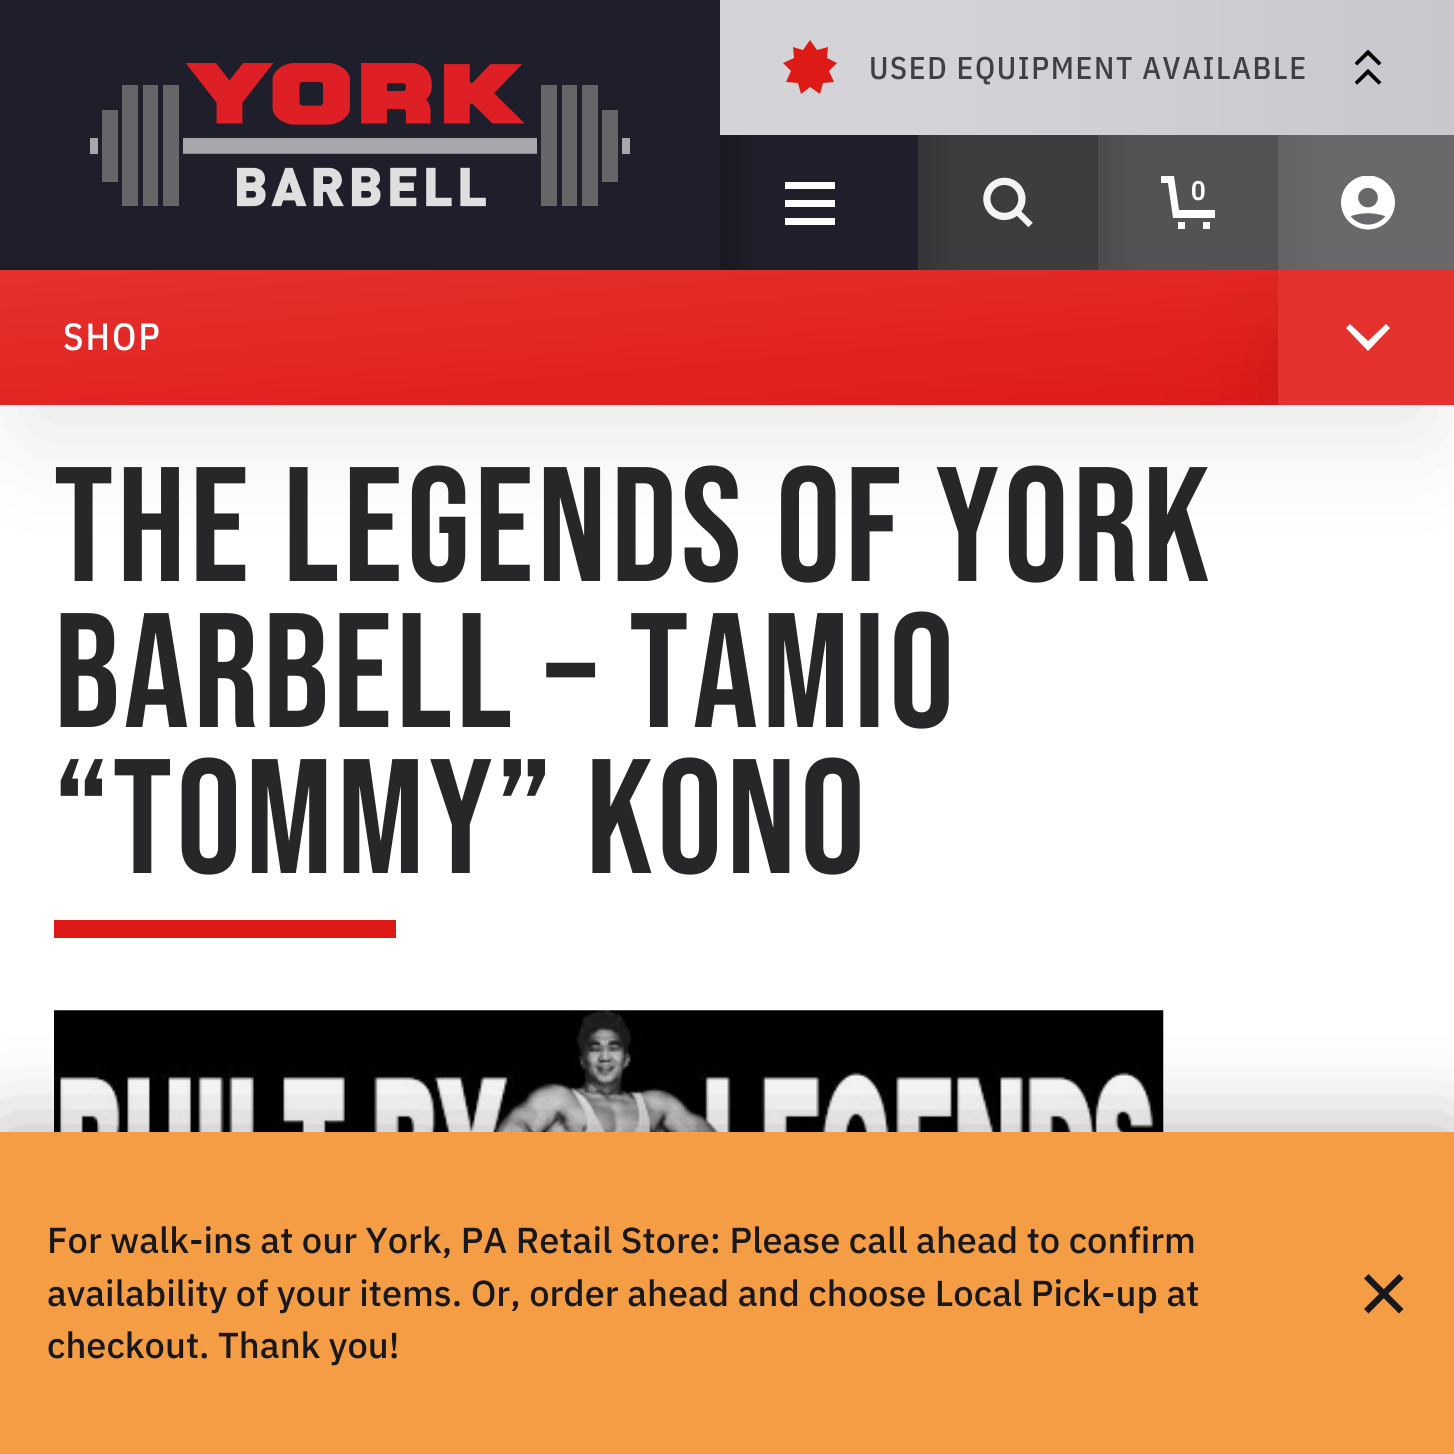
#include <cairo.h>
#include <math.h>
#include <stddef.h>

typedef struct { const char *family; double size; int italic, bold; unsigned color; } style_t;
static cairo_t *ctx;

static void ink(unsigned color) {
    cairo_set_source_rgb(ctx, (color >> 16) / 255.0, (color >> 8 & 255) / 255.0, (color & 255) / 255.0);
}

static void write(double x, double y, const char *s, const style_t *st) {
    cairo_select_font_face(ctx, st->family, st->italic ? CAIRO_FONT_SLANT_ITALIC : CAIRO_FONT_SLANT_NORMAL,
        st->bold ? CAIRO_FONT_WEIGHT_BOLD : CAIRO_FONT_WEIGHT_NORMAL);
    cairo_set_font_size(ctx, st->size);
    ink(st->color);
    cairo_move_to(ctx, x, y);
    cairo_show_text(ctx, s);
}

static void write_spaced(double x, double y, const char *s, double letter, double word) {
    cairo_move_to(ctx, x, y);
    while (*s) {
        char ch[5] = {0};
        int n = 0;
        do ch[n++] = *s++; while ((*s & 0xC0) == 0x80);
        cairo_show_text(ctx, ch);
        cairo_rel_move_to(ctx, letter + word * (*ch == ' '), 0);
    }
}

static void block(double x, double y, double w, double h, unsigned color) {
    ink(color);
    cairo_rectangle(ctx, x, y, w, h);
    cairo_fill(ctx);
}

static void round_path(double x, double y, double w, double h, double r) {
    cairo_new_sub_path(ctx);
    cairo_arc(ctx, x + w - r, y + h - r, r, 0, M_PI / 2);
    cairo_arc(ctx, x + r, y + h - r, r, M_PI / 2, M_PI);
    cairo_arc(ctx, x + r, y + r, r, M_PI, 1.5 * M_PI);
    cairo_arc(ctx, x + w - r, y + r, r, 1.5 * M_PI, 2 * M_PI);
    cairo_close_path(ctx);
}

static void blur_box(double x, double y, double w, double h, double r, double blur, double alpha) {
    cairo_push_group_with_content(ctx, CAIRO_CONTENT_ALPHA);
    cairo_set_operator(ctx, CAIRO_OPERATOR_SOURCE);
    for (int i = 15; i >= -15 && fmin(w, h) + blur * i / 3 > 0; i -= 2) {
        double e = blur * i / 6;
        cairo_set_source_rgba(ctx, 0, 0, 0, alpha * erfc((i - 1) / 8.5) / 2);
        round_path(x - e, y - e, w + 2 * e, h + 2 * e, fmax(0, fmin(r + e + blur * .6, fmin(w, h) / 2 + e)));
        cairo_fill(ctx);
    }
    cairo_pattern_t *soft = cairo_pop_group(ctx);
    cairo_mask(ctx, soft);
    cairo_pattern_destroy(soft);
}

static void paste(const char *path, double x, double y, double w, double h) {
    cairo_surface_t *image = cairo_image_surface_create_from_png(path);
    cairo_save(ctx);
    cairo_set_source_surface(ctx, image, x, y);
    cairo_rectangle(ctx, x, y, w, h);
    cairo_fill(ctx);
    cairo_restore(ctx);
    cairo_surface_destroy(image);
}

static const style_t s1 = {"IBM Plex Sans Medium", 36.1, 0, 0, 0x18181b};

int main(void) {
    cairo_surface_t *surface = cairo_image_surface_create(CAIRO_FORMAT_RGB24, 1454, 1454);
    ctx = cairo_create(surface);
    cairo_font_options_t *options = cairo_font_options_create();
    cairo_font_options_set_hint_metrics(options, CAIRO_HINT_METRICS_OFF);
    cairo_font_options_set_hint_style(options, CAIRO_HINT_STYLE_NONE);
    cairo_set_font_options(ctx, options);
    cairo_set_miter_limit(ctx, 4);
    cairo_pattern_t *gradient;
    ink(0xffffff);
    cairo_paint(ctx);
    ink(0x000000);
    blur_box(27, 83, 1404, 351, 0, 56, 0.1);
    block(0, 0, 918, 270, 0x1f1f2b);
    paste("pic1.png", 90, 63, 540, 144);
    gradient = cairo_pattern_create_linear(720, 68, 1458, 67);
    cairo_pattern_add_color_stop_rgba(gradient, 0.25, 0.831, 0.831, 0.847, 1);
    cairo_pattern_add_color_stop_rgba(gradient, 1, 0.78, 0.78, 0.804, 1);
    cairo_set_source(ctx, gradient);
    cairo_pattern_destroy(gradient);
    cairo_rectangle(ctx, 720, 0, 734, 135);
    cairo_fill(ctx);
    ink(0xde1a17);
    cairo_new_path(ctx);
    cairo_move_to(ctx, 817, 50);
    cairo_line_to(ctx, 810, 40);
    cairo_line_to(ctx, 803, 50);
    cairo_line_to(ctx, 793, 47);
    cairo_line_to(ctx, 794, 58);
    cairo_line_to(ctx, 783, 63);
    cairo_line_to(ctx, 791, 71);
    cairo_line_to(ctx, 786, 82);
    cairo_line_to(ctx, 798, 83);
    cairo_line_to(ctx, 801, 94);
    cairo_line_to(ctx, 810, 87);
    cairo_line_to(ctx, 820, 94);
    cairo_line_to(ctx, 823, 83);
    cairo_line_to(ctx, 834, 82);
    cairo_line_to(ctx, 829, 71);
    cairo_line_to(ctx, 837, 63);
    cairo_line_to(ctx, 827, 58);
    cairo_line_to(ctx, 828, 47);
    cairo_close_path(ctx);
    cairo_fill(ctx);
    cairo_select_font_face(ctx, "IBM Plex Sans Condensed Medium", CAIRO_FONT_SLANT_NORMAL, CAIRO_FONT_WEIGHT_NORMAL);
    cairo_set_font_size(ctx, 31.5);
    ink(0x3f3f46);
    write_spaced(869, 79, "USED EQUIPMENT AVAILABLE", 1.6, 0);
    paste("pic2.png", 1355, 50, 27, 35);
    gradient = cairo_pattern_create_linear(720, 203, 765, 203);
    cairo_pattern_add_color_stop_rgba(gradient, 0, 0.098, 0.098, 0.137, 1);
    cairo_pattern_add_color_stop_rgba(gradient, 1, 0.122, 0.122, 0.169, 1);
    cairo_set_source(ctx, gradient);
    cairo_pattern_destroy(gradient);
    cairo_rectangle(ctx, 720, 135, 31, 135);
    cairo_fill(ctx);
    block(785, 182, 50, 7, 0xffffff);
    block(785, 200, 50, 7, 0xffffff);
    block(785, 218, 50, 7, 0xffffff);
    block(963, 135, 135, 135, 0x3b3d3f);
    gradient = cairo_pattern_create_linear(918, 203, 963, 203);
    cairo_pattern_add_color_stop_rgba(gradient, 0, 0.204, 0.212, 0.216, 1);
    cairo_pattern_add_color_stop_rgba(gradient, 1, 0.231, 0.239, 0.247, 1);
    cairo_set_source(ctx, gradient);
    cairo_pattern_destroy(gradient);
    cairo_rectangle(ctx, 918, 135, 45, 135);
    cairo_fill(ctx);
    paste("pic3.png", 983, 177, 50, 51);
    gradient = cairo_pattern_create_linear(717, 204, 741, 471);
    cairo_pattern_add_color_stop_rgba(gradient, 0, 0.898, 0.192, 0.18, 1);
    cairo_pattern_add_color_stop_rgba(gradient, 1, 0.871, 0.102, 0.09, 1);
    cairo_set_source(ctx, gradient);
    cairo_pattern_destroy(gradient);
    cairo_rectangle(ctx, 0, 270, 1278, 135);
    cairo_fill(ctx);
    cairo_save(ctx);
    cairo_rectangle(ctx, 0, 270, 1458, 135);
    cairo_clip(ctx);
    ink(0xb41513);
    blur_box(1305, 353, 126, 81, 0, 56, 1);
    cairo_restore(ctx);
    block(1143, 135, 135, 135, 0x535356);
    gradient = cairo_pattern_create_linear(1098, 203, 1143, 203);
    cairo_pattern_add_color_stop_rgba(gradient, 0, 0.298, 0.298, 0.31, 1);
    cairo_pattern_add_color_stop_rgba(gradient, 1, 0.325, 0.325, 0.337, 1);
    cairo_set_source(ctx, gradient);
    cairo_pattern_destroy(gradient);
    cairo_rectangle(ctx, 1098, 135, 45, 135);
    cairo_fill(ctx);
    ink(0xffffff);
    cairo_new_path(ctx);
    cairo_move_to(ctx, 1168, 183);
    cairo_line_to(ctx, 1161, 183);
    cairo_line_to(ctx, 1161, 176);
    cairo_line_to(ctx, 1174, 176);
    cairo_line_to(ctx, 1179, 210);
    cairo_line_to(ctx, 1215, 210);
    cairo_line_to(ctx, 1215, 218);
    cairo_line_to(ctx, 1173, 218);
    cairo_close_path(ctx);
    cairo_move_to(ctx, 1178, 222);
    cairo_line_to(ctx, 1185, 222);
    cairo_line_to(ctx, 1185, 229);
    cairo_line_to(ctx, 1178, 229);
    cairo_close_path(ctx);
    cairo_move_to(ctx, 1206, 222);
    cairo_line_to(ctx, 1203, 222);
    cairo_line_to(ctx, 1203, 229);
    cairo_line_to(ctx, 1210, 229);
    cairo_line_to(ctx, 1210, 222);
    cairo_close_path(ctx);
    cairo_fill(ctx);
    cairo_select_font_face(ctx, "IBM Plex Sans Condensed SemiBold", CAIRO_FONT_SLANT_NORMAL, CAIRO_FONT_WEIGHT_NORMAL);
    cairo_set_font_size(ctx, 27);
    write_spaced(1191, 200, "0", 1, 0);
    block(1323, 135, 131, 135, 0x69696b);
    gradient = cairo_pattern_create_linear(1278, 203, 1323, 203);
    cairo_pattern_add_color_stop_rgba(gradient, 0, 0.388, 0.388, 0.396, 1);
    cairo_pattern_add_color_stop_rgba(gradient, 1, 0.412, 0.412, 0.42, 1);
    cairo_set_source(ctx, gradient);
    cairo_pattern_destroy(gradient);
    cairo_rectangle(ctx, 1278, 135, 45, 135);
    cairo_fill(ctx);
    paste("pic4.png", 1341, 176, 54, 54);
    cairo_select_font_face(ctx, "IBM Plex Sans Condensed Medium", CAIRO_FONT_SLANT_NORMAL, CAIRO_FONT_WEIGHT_NORMAL);
    cairo_set_font_size(ctx, 38);
    ink(0xffffff);
    write_spaced(63, 350, "SHOP", 2, 0);
    block(1278, 270, 176, 135, 0xe5312e);
    ink(0xffffff);
    cairo_set_fill_rule(ctx, CAIRO_FILL_RULE_EVEN_ODD);
    cairo_new_path(ctx);
    cairo_move_to(ctx, 1346, 328);
    cairo_line_to(ctx, 1350, 324);
    cairo_line_to(ctx, 1368, 341);
    cairo_line_to(ctx, 1386, 324);
    cairo_line_to(ctx, 1390, 328);
    cairo_line_to(ctx, 1368, 351);
    cairo_close_path(ctx);
    cairo_fill(ctx);
    paste("pic5.png", 54, 1010, 1110, 122);
    ink(0x000000);
    blur_box(0, 1132, 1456, 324, 0, 45, 0.3);
    block(0, 1132, 1454, 322, 0xf59d45);
    write(47, 1253, "For walk-ins at our York, PA Retail Store: Please call ahead to confirm", &s1);
    write(47, 1306, "availability of your items. Or, order ahead and choose Local Pick-up at", &s1);
    write(47, 1358, "checkout. Thank you!", &s1);
    cairo_set_fill_rule(ctx, CAIRO_FILL_RULE_WINDING);
    cairo_new_path(ctx);
    cairo_move_to(ctx, 1368.5, 1274);
    cairo_line_to(ctx, 1403.5, 1309);
    cairo_line_to(ctx, 1399, 1313.5);
    cairo_line_to(ctx, 1364, 1278.5);
    cairo_close_path(ctx);
    cairo_fill(ctx);
    cairo_new_path(ctx);
    cairo_move_to(ctx, 1364, 1309);
    cairo_line_to(ctx, 1399, 1274);
    cairo_line_to(ctx, 1403.5, 1278.5);
    cairo_line_to(ctx, 1368.5, 1313.5);
    cairo_close_path(ctx);
    cairo_fill(ctx);
    cairo_select_font_face(ctx, "Bebas Neue", CAIRO_FONT_SLANT_NORMAL, CAIRO_FONT_WEIGHT_NORMAL);
    cairo_set_font_size(ctx, 162.75);
    ink(0x27272a);
    write_spaced(54, 581, "The Legends of York", 4.1, 0);
    write_spaced(54, 727, "Barbell – Tamio", 4.1, 0);
    write_spaced(54, 873, "“Tommy” Kono", 4.1, 0);
    block(54, 920, 342, 18, 0xde1a17);
    cairo_surface_write_to_png(surface, "screenshot.png");
    cairo_font_options_destroy(options);
    cairo_destroy(ctx);
    cairo_surface_destroy(surface);
    return 0;
}
